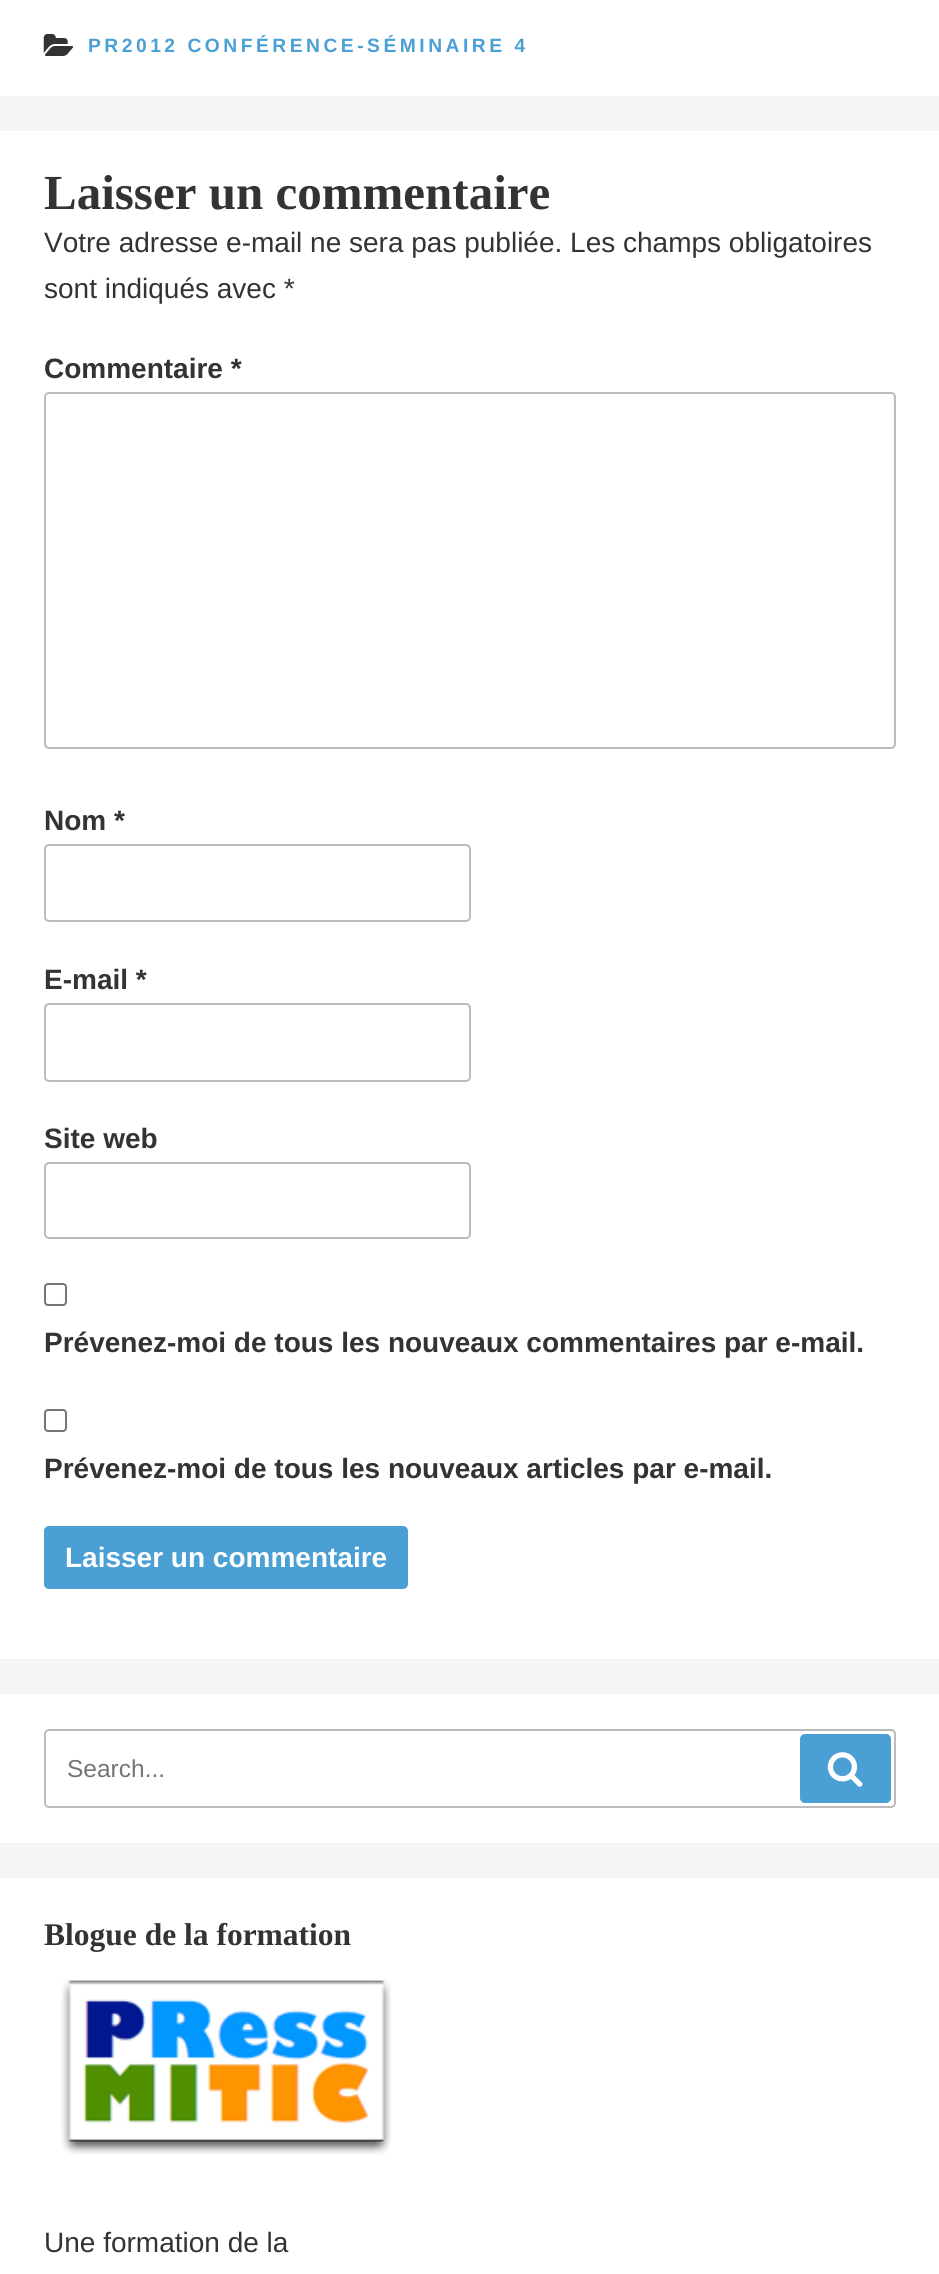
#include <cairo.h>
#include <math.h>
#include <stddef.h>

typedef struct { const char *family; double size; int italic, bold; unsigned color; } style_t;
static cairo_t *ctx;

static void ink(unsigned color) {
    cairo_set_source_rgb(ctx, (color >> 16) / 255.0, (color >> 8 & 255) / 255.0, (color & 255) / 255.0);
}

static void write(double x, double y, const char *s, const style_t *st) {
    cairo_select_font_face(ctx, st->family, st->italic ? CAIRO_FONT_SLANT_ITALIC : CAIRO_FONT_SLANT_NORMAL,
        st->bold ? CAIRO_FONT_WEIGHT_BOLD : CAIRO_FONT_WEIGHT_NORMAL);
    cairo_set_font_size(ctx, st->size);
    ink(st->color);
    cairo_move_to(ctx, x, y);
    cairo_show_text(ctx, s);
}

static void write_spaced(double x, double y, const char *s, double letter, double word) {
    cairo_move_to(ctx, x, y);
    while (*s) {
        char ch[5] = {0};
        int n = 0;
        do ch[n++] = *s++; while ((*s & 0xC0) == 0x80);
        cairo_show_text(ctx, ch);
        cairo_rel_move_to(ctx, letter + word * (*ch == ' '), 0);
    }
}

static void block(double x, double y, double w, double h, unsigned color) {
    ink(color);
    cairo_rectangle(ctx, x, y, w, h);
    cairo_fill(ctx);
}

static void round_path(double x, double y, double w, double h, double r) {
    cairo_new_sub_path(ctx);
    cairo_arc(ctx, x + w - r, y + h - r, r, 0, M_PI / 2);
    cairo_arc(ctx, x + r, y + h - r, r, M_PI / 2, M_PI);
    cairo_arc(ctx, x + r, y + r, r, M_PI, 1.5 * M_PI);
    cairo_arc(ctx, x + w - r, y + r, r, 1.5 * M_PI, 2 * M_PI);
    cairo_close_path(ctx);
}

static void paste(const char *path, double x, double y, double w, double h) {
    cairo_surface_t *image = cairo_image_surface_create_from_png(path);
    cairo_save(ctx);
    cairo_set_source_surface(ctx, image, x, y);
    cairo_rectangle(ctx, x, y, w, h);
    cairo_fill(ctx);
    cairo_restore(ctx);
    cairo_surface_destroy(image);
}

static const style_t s1 = {"Liberation Serif", 49, 0, 1, 0x333333};
static const style_t s2 = {"Liberation Sans", 28, 0, 0, 0x333333};
static const style_t s3 = {"Liberation Sans", 28, 0, 1, 0x333333};
static const style_t s4 = {"Liberation Sans", 28, 0, 1, 0xffffff};
static const style_t s5 = {"Liberation Sans", 24.5, 0, 0, 0x757575};
static const style_t s6 = {"Liberation Serif", 31.5, 0, 1, 0x333333};

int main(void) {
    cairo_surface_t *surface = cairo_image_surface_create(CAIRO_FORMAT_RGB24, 939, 2274);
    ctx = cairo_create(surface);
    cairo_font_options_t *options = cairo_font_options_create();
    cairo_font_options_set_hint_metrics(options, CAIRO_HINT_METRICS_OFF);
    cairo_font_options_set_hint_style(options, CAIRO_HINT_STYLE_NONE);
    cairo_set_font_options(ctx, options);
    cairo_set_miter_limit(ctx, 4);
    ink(0xf4f5f6);
    cairo_paint(ctx);
    block(0, 0, 939, 96, 0xffffff);
    paste("pic1.png", 43, 34, 31, 22);
    cairo_select_font_face(ctx, "Liberation Sans", CAIRO_FONT_SLANT_NORMAL, CAIRO_FONT_WEIGHT_BOLD);
    cairo_set_font_size(ctx, 19.25);
    ink(0x4aa0d5);
    write_spaced(88, 52, "PR2012 CONFÉRENCE-SÉMINAIRE 4", 3.5, 0);
    block(0, 131, 939, 1528, 0xffffff);
    write(44, 209, "Laisser un commentaire", &s1);
    write(44, 252, "Votre adresse e-mail ne sera pas publiée. Les champs obligatoires", &s2);
    write(44, 298, "sont indiqués avec *", &s2);
    write(44, 378, "Commentaire *", &s3);
    round_path(45, 393, 850, 355, 4);
    ink(0xbbbbbb);
    cairo_stroke(ctx);
    write(44, 830, "Nom *", &s3);
    round_path(45, 845, 425, 76, 4);
    ink(0xbbbbbb);
    cairo_stroke(ctx);
    write(44, 989, "E-mail *", &s3);
    round_path(45, 1004, 425, 77, 4);
    ink(0xbbbbbb);
    cairo_stroke(ctx);
    write(44, 1148, "Site web", &s3);
    round_path(45, 1163, 425, 75, 4);
    ink(0xbbbbbb);
    cairo_stroke(ctx);
    round_path(45, 1284, 21, 21, 3);
    ink(0x767676);
    cairo_stroke(ctx);
    write(44, 1352, "Prévenez-moi de tous les nouveaux commentaires par e-mail.", &s3);
    round_path(45, 1410, 21, 21, 3);
    ink(0x767676);
    cairo_stroke(ctx);
    write(44, 1478, "Prévenez-moi de tous les nouveaux articles par e-mail.", &s3);
    ink(0x4aa0d5);
    round_path(44, 1526, 364, 63, 5);
    cairo_fill(ctx);
    write(65, 1567, "Laisser un commentaire", &s4);
    block(0, 1694, 939, 149, 0xffffff);
    round_path(45, 1730, 850, 77, 4);
    ink(0xbbbbbb);
    cairo_stroke(ctx);
    write(67, 1777, "Search...", &s5);
    ink(0x4aa0d5);
    round_path(800, 1734, 91, 69, 5);
    cairo_fill(ctx);
    paste("pic2.png", 827, 1752, 36, 35);
    block(0, 1878, 939, 396, 0xffffff);
    write(44, 1945, "Blogue de la formation", &s6);
    paste("pic3.png", 61, 1980, 330, 175);
    write(44, 2252, "Une formation de la", &s2);
    cairo_surface_write_to_png(surface, "screenshot.png");
    cairo_font_options_destroy(options);
    cairo_destroy(ctx);
    cairo_surface_destroy(surface);
    return 0;
}
